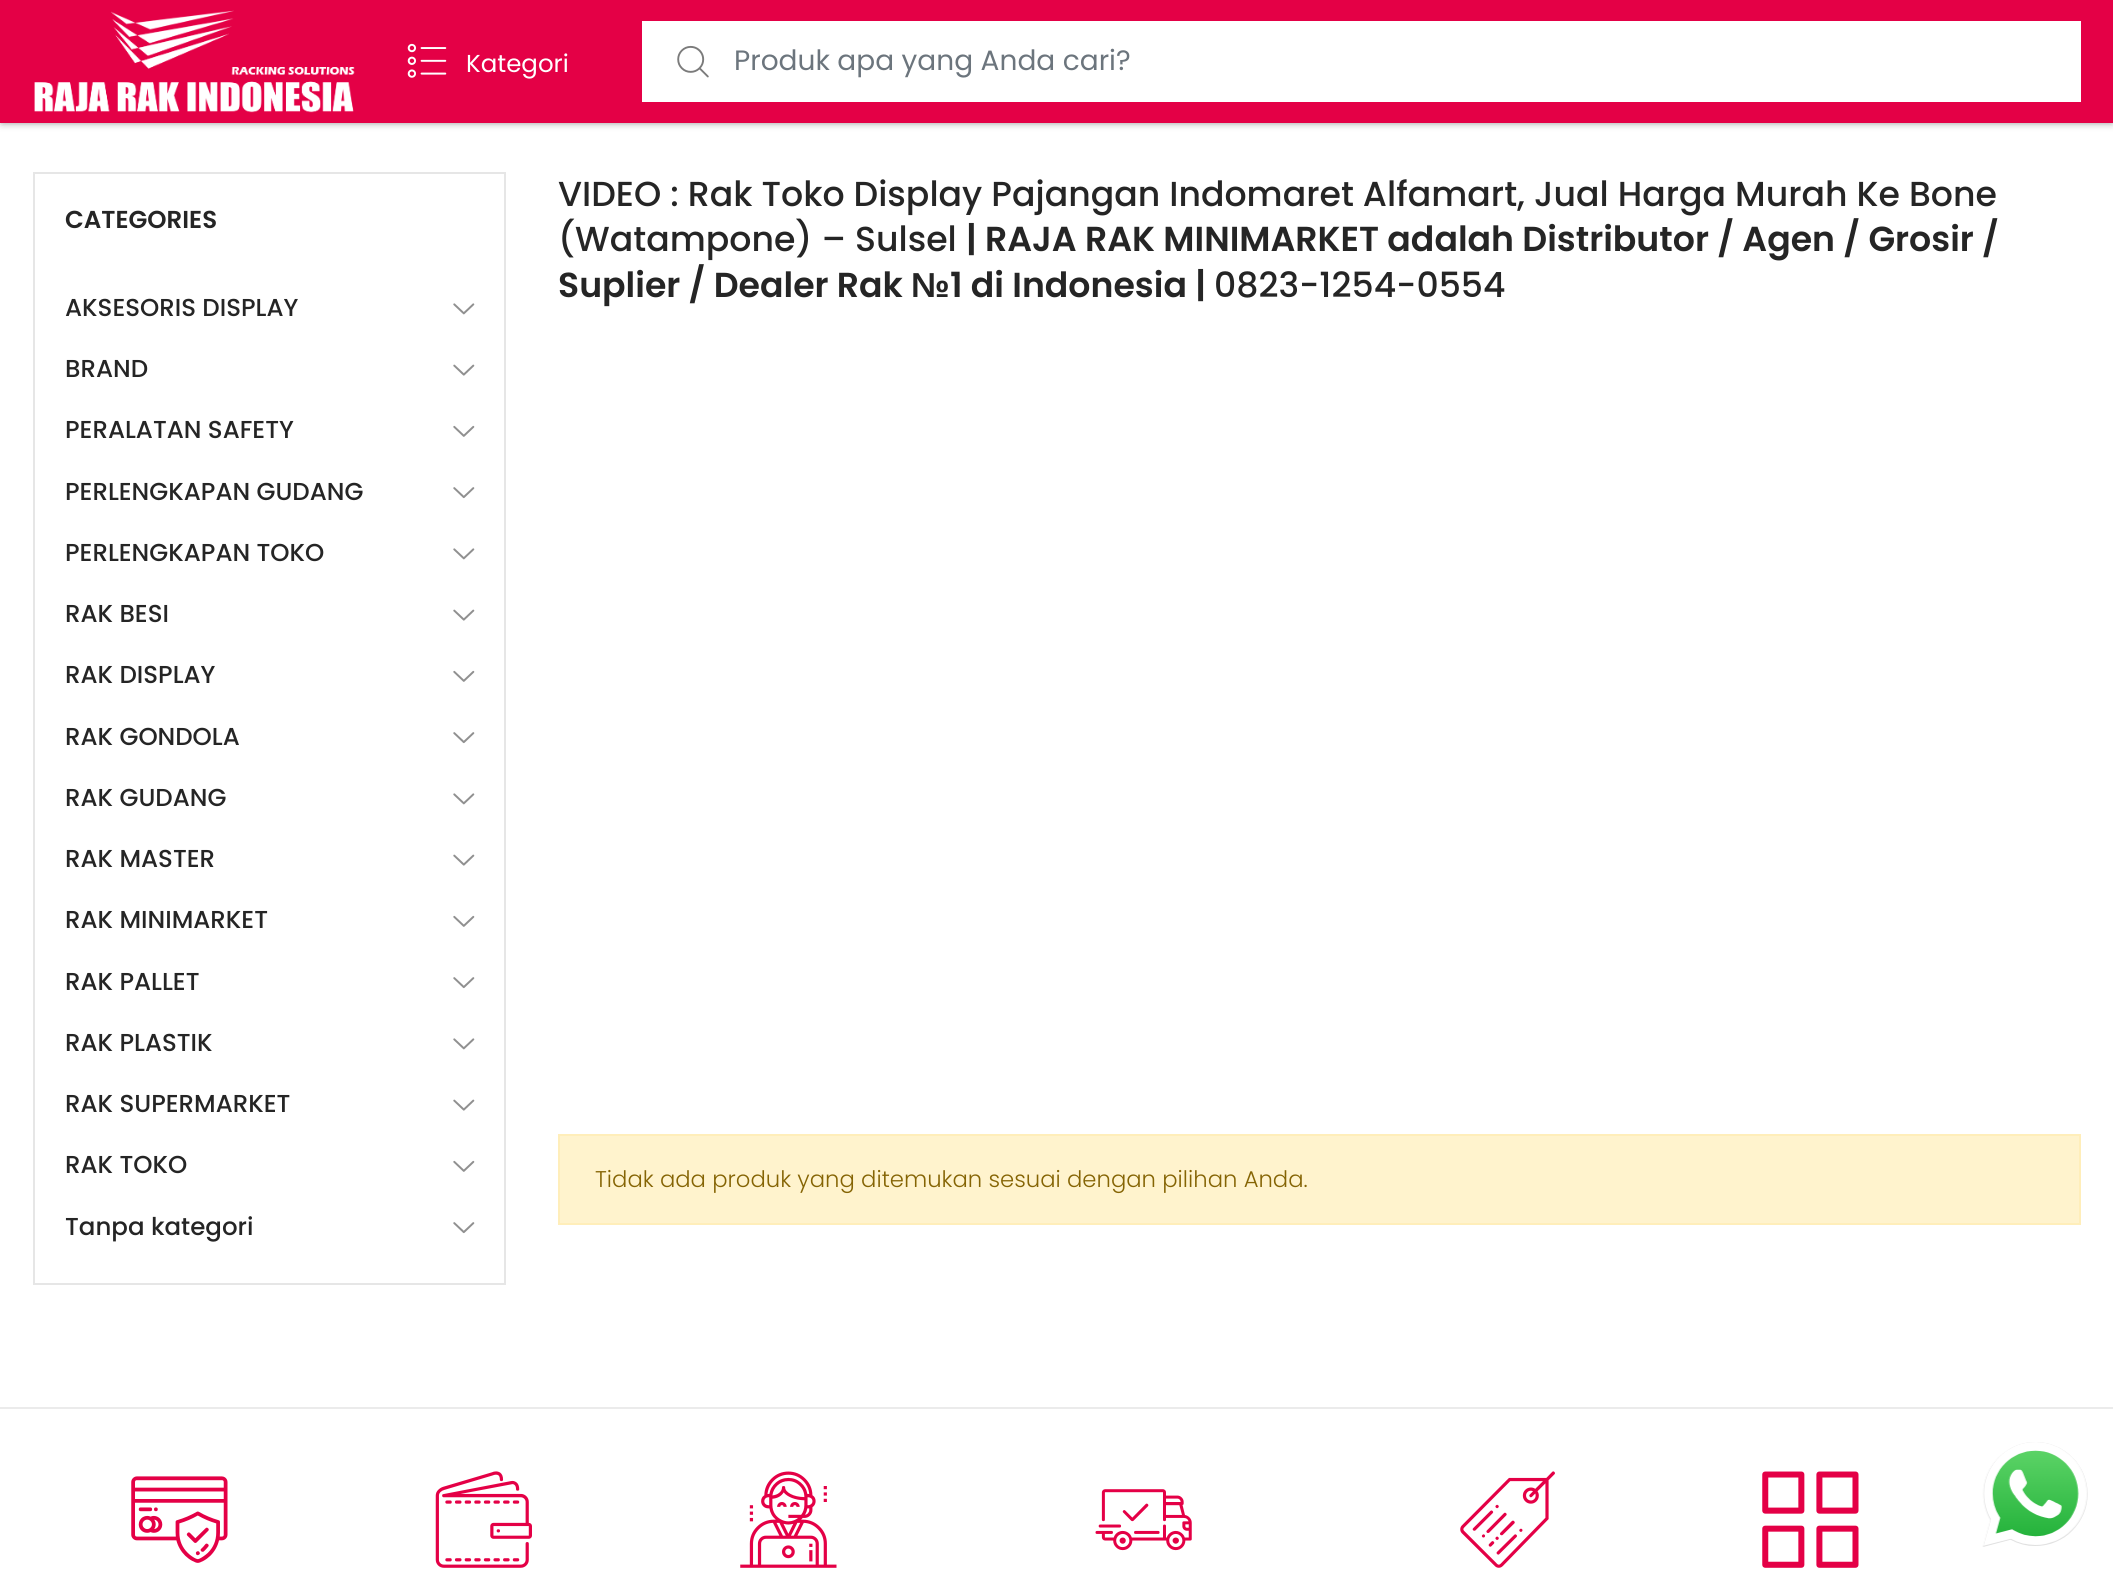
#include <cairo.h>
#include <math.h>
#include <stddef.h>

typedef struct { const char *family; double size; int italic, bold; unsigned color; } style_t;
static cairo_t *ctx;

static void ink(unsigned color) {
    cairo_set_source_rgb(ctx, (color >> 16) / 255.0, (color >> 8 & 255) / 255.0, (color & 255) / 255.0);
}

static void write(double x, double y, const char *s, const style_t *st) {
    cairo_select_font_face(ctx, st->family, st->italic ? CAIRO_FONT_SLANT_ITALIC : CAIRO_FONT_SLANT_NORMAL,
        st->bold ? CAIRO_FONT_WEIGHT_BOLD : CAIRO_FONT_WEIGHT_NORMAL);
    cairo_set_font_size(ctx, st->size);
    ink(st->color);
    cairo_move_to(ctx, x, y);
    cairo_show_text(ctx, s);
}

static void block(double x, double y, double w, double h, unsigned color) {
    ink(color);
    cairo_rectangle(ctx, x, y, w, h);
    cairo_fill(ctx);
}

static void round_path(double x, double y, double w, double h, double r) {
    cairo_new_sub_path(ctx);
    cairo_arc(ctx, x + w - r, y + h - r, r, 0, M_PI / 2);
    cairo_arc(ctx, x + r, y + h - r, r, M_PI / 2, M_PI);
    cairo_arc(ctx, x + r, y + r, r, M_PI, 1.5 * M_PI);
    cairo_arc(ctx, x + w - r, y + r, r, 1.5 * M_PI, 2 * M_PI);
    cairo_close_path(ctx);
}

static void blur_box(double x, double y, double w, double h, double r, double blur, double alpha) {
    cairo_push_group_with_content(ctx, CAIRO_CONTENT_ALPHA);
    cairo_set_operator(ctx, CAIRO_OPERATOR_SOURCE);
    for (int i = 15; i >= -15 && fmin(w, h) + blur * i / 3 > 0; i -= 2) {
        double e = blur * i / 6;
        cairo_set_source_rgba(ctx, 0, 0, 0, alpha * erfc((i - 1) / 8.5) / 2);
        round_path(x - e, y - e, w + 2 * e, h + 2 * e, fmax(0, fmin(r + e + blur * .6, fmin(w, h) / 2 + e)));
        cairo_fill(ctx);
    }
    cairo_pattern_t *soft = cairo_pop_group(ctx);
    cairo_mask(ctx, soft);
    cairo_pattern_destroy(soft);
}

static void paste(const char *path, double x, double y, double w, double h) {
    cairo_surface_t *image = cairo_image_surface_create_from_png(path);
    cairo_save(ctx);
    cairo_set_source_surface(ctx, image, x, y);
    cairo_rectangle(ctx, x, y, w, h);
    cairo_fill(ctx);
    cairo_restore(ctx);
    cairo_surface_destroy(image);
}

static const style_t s1 = {"Poppins", 24.5, 0, 0, 0xffffff};
static const style_t s2 = {"Poppins", 28, 0, 0, 0x6c757d};
static const style_t s3 = {"Poppins SemiBold", 24.5, 0, 0, 0x252525};
static const style_t s4 = {"Poppins Medium", 24.5, 0, 0, 0x252525};
static const style_t s5 = {"Poppins Medium", 34.7, 0, 0, 0x252525};
static const style_t s6 = {"Poppins SemiBold", 34.7, 0, 0, 0x252525};
static const style_t s7 = {"Liberation Sans", 34.7, 0, 1, 0x252525};
static const style_t s8 = {"Poppins Light", 22.75, 0, 0, 0x856404};

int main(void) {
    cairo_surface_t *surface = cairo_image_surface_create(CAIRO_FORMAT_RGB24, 2113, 1572);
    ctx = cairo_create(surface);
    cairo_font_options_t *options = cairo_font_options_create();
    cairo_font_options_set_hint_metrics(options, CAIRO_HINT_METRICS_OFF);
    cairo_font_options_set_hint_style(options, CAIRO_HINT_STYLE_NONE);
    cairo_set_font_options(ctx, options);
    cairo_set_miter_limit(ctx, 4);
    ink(0xffffff);
    cairo_paint(ctx);
    ink(0x000000);
    blur_box(2, 2, 2110, 119, 0, 4.5, 0.66);
    block(0, 0, 2113, 123, 0xe40046);
    paste("pic1.png", 34, 10, 321, 103);
    paste("pic2.png", 407, 43, 40, 35);
    write(466, 72, "Kategori", &s1);
    block(642, 21, 1439, 81, 0xffffff);
    paste("pic3.png", 677, 45, 32, 33);
    write(734, 70, "Produk apa yang Anda cari?", &s2);
    cairo_rectangle(ctx, 34, 173, 471, 1111);
    ink(0xe6e6e6);
    cairo_stroke(ctx);
    write(65, 228, "CATEGORIES", &s3);
    write(65, 316, "AKSESORIS DISPLAY", &s4);
    paste("pic4.png", 453, 303, 22, 12);
    write(65, 377, "BRAND", &s4);
    paste("pic5.png", 453, 364, 22, 12);
    write(65, 438, "PERALATAN SAFETY", &s4);
    paste("pic6.png", 453, 425, 22, 12);
    write(65, 500, "PERLENGKAPAN GUDANG", &s4);
    paste("pic7.png", 453, 487, 22, 12);
    write(65, 561, "PERLENGKAPAN TOKO", &s4);
    paste("pic4.png", 453, 548, 22, 12);
    write(65, 622, "RAK BESI", &s4);
    paste("pic5.png", 453, 609, 22, 12);
    write(65, 683, "RAK DISPLAY", &s4);
    paste("pic6.png", 453, 670, 22, 12);
    write(65, 745, "RAK GONDOLA", &s4);
    paste("pic7.png", 453, 732, 22, 12);
    write(65, 806, "RAK GUDANG", &s4);
    paste("pic4.png", 453, 793, 22, 12);
    write(65, 867, "RAK MASTER", &s4);
    paste("pic5.png", 453, 854, 22, 12);
    write(65, 928, "RAK MINIMARKET", &s4);
    paste("pic6.png", 453, 915, 22, 12);
    write(65, 990, "RAK PALLET", &s4);
    paste("pic7.png", 453, 977, 22, 12);
    write(65, 1051, "RAK PLASTIK", &s4);
    paste("pic4.png", 453, 1038, 22, 12);
    write(65, 1112, "RAK SUPERMARKET", &s4);
    paste("pic5.png", 453, 1099, 22, 12);
    write(65, 1173, "RAK TOKO", &s4);
    paste("pic6.png", 453, 1160, 22, 12);
    write(65, 1235, "Tanpa kategori", &s4);
    paste("pic7.png", 453, 1222, 22, 12);
    write(558, 206, "VIDEO : Rak Toko Display Pajangan Indomaret Alfamart, Jual Harga Murah Ke Bone", &s5);
    write(558, 251, "(Watampone) – Sulsel", &s5);
    write(966, 251, "| RAJA RAK MINIMARKET adalah Distributor / Agen / Grosir /", &s6);
    write(558, 297, "Suplier / Dealer Rak", &s6);
    write(911, 297, "№", &s7);
    write(950, 297, "1 di Indonesia |", &s6);
    write(1214, 297, "0823-1254-0554", &s5);
    ink(0xfff3cd);
    cairo_rectangle(ctx, 559, 1135, 1521, 89);
    cairo_fill_preserve(ctx);
    ink(0xffeeba);
    cairo_stroke(ctx);
    write(595, 1187, "Tidak ada produk yang ditemukan sesuai dengan pilihan Anda.", &s8);
    block(0, 1407, 2113, 2, 0xebebeb);
    paste("pic8.png", 131, 1476, 97, 87);
    paste("pic9.png", 435, 1471, 97, 97);
    paste("pic10.png", 740, 1471, 97, 97);
    paste("pic11.png", 1095, 1489, 97, 62);
    paste("pic12.png", 1460, 1471, 95, 97);
    paste("pic13.png", 1762, 1471, 97, 97);
    paste("pic14.png", 1982, 1442, 106, 105);
    cairo_surface_write_to_png(surface, "screenshot.png");
    cairo_font_options_destroy(options);
    cairo_destroy(ctx);
    cairo_surface_destroy(surface);
    return 0;
}
